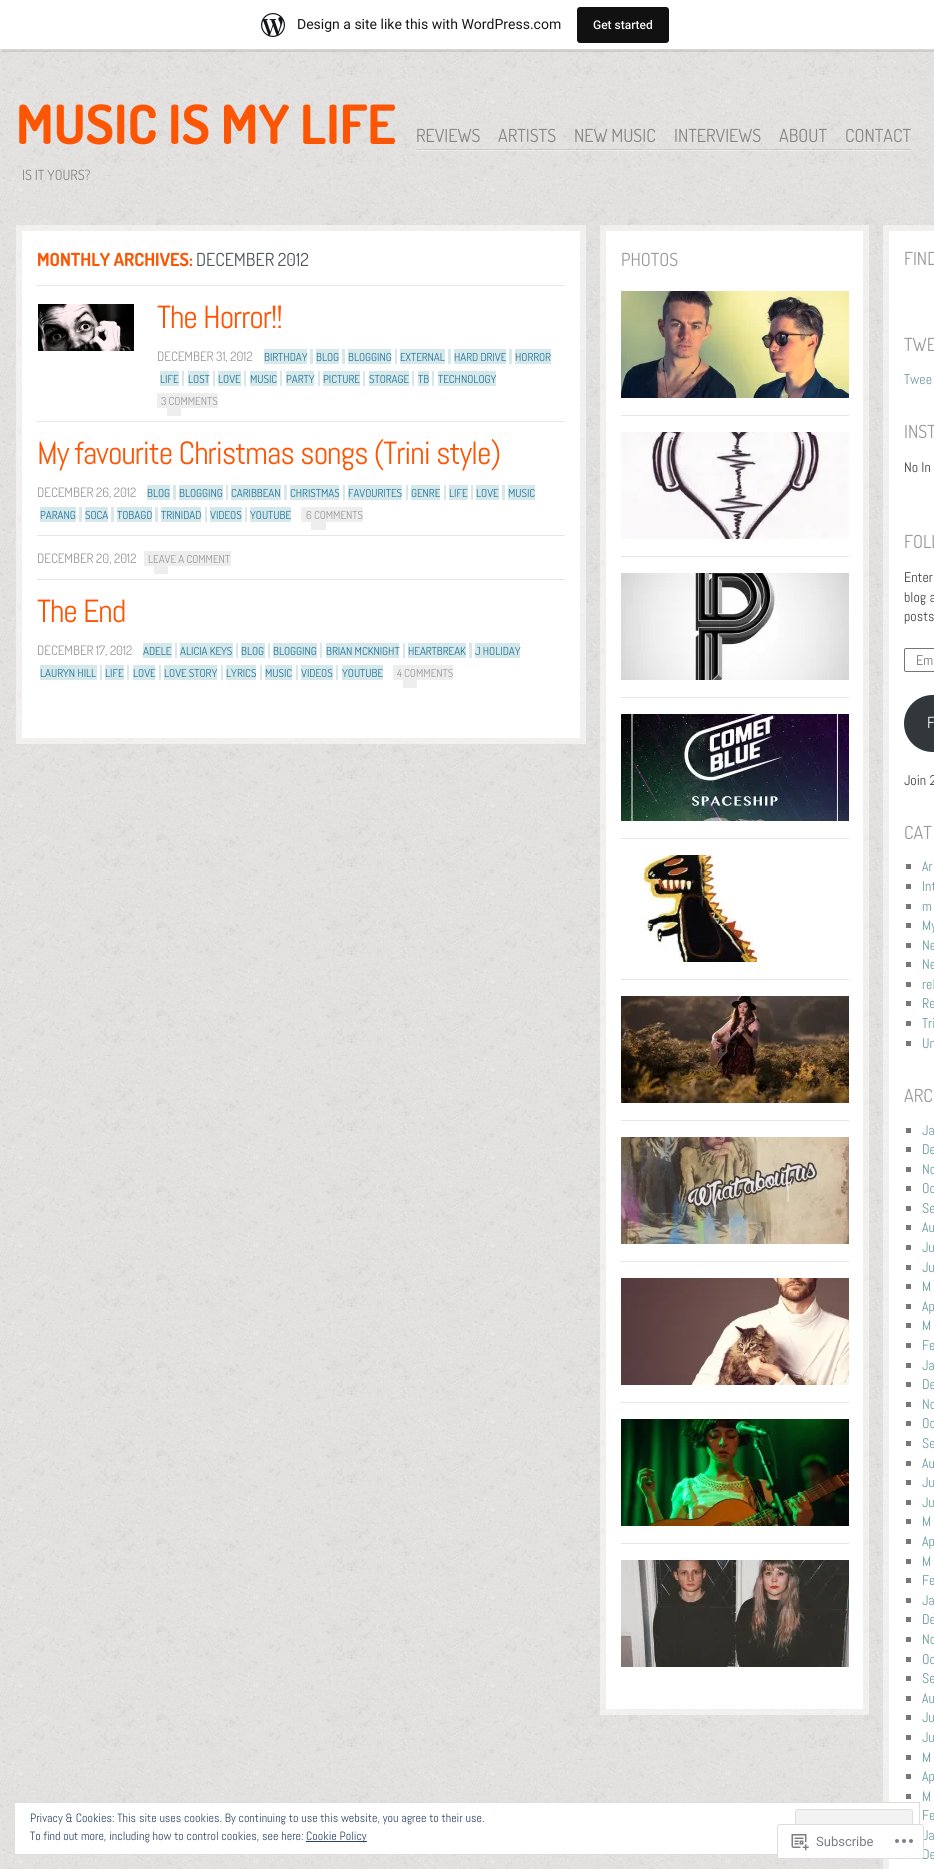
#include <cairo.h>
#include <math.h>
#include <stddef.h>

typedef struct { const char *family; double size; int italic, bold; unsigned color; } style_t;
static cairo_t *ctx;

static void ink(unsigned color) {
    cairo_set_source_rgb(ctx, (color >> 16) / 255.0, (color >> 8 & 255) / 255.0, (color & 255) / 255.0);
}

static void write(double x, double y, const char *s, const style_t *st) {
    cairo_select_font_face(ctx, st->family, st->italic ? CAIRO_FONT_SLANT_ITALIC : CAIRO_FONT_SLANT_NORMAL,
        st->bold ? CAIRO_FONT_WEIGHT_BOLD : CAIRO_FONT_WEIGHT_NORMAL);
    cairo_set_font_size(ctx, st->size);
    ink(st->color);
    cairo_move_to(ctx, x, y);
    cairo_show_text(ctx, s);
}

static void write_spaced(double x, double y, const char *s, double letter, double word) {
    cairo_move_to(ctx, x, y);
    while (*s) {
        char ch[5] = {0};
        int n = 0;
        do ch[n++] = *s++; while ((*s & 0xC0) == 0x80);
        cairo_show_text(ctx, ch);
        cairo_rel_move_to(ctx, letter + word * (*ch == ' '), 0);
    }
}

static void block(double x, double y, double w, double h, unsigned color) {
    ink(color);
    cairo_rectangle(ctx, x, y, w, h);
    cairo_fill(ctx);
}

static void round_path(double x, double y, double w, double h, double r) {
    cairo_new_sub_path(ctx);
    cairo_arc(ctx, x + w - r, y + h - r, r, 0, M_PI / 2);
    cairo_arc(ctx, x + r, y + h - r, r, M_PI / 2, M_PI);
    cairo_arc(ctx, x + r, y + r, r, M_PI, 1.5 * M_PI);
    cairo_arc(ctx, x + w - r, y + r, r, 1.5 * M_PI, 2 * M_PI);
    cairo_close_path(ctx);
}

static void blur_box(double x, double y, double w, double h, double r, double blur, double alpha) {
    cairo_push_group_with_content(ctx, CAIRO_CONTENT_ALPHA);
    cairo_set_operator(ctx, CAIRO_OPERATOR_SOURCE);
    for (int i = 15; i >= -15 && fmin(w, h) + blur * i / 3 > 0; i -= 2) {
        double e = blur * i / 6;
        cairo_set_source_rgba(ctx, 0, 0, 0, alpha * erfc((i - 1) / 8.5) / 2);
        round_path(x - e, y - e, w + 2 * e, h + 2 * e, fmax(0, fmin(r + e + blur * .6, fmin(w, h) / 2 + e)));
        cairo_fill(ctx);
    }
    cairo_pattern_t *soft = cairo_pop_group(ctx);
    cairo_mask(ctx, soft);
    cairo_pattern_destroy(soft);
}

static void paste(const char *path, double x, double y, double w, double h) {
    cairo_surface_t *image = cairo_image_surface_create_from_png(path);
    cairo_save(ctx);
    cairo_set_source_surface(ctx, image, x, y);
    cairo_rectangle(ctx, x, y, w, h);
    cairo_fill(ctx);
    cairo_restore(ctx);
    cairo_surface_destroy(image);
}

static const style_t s1 = {"Roboto", 14, 0, 0, 0x171717};
static const style_t s2 = {"Roboto Medium", 12, 0, 0, 0xf6f7f7};
static const style_t s3 = {"Dosis", 54, 0, 1, 0xfc5605};
static const style_t s4 = {"Dosis", 14, 0, 0, 0x878685};
static const style_t s5 = {"Dosis", 18, 0, 0, 0x878685};
static const style_t s6 = {"Dosis", 18, 0, 1, 0xfc5605};
static const style_t s7 = {"Dosis", 18, 0, 0, 0x4d555a};
static const style_t s8 = {"Dosis", 13, 0, 0, 0x999999};
static const style_t s9 = {"Dosis", 11, 0, 0, 0x21759b};
static const style_t s10 = {"Dosis", 11, 0, 0, 0x999999};
static const style_t s11 = {"Dosis", 18, 0, 0, 0x999999};
static const style_t s12 = {"Abel", 14, 0, 0, 0x6c9a9f};
static const style_t s13 = {"Abel", 14, 0, 0, 0x404040};
static const style_t s14 = {"Abel", 14, 0, 0, 0x757575};
static const style_t s15 = {"Abel", 16, 0, 0, 0xffffff};
static const style_t s16 = {"Abel", 12, 0, 0, 0x2e4467};
static const style_t s17 = {"Roboto", 13, 0, 0, 0x7a7e84};

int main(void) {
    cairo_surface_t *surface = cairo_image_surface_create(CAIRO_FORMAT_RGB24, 934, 1869);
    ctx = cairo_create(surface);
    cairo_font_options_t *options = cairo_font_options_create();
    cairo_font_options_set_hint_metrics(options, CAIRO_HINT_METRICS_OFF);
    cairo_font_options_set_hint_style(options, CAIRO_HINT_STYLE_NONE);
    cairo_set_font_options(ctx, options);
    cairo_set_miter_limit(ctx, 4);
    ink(0xebe9e7);
    cairo_paint(ctx);
    paste("pic1.png", 0, 49, 934, 1820);
    cairo_set_source_rgba(ctx, 1, 1, 1, 0.6);
    cairo_rectangle(ctx, 0, 49, 934, 1);
    cairo_fill(ctx);
    ink(0x000000);
    blur_box(0, 1, 934, 49, 0, 1, 0.05);
    cairo_set_source_rgba(ctx, 0, 0, 0, 0.08);
    cairo_new_path(ctx);
    cairo_move_to(ctx, 1, 49);
    cairo_line_to(ctx, 1, 52);
    cairo_line_to(ctx, 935, 52);
    cairo_line_to(ctx, 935, 3);
    cairo_line_to(ctx, 934, 3);
    cairo_line_to(ctx, 934, 49);
    cairo_close_path(ctx);
    cairo_fill(ctx);
    block(0, 0, 934, 49, 0xffffff);
    paste("pic2.png", 261, 13, 24, 24);
    write(297, 29, "Design a site like this with WordPress.com", &s1);
    ink(0x111111);
    round_path(577, 7, 92, 36, 3);
    cairo_fill(ctx);
    write(593, 29, "Get started", &s2);
    write(16, 144, "MUSIC IS MY LIFE", &s3);
    write(22, 180, "IS IT YOURS?", &s4);
    cairo_set_source_rgba(ctx, 1, 1, 1, 0.4);
    cairo_rectangle(ctx, 416, 150, 82, 1);
    cairo_fill(ctx);
    cairo_set_source_rgba(ctx, 0, 0, 0, 0.1);
    cairo_rectangle(ctx, 416, 149, 82, 1);
    cairo_fill(ctx);
    write(416, 142, "REVIEWS", &s5);
    cairo_set_source_rgba(ctx, 1, 1, 1, 0.4);
    cairo_rectangle(ctx, 498, 150, 76, 1);
    cairo_fill(ctx);
    cairo_set_source_rgba(ctx, 0, 0, 0, 0.1);
    cairo_rectangle(ctx, 498, 149, 76, 1);
    cairo_fill(ctx);
    write(498, 142, "ARTISTS", &s5);
    cairo_set_source_rgba(ctx, 1, 1, 1, 0.4);
    cairo_rectangle(ctx, 574, 150, 100, 1);
    cairo_fill(ctx);
    cairo_set_source_rgba(ctx, 0, 0, 0, 0.1);
    cairo_rectangle(ctx, 574, 149, 100, 1);
    cairo_fill(ctx);
    write(574, 142, "NEW MUSIC", &s5);
    cairo_set_source_rgba(ctx, 1, 1, 1, 0.4);
    cairo_rectangle(ctx, 674, 150, 105, 1);
    cairo_fill(ctx);
    cairo_set_source_rgba(ctx, 0, 0, 0, 0.1);
    cairo_rectangle(ctx, 674, 149, 105, 1);
    cairo_fill(ctx);
    write(674, 142, "INTERVIEWS", &s5);
    cairo_set_source_rgba(ctx, 1, 1, 1, 0.4);
    cairo_rectangle(ctx, 779, 150, 66, 1);
    cairo_fill(ctx);
    cairo_set_source_rgba(ctx, 0, 0, 0, 0.1);
    cairo_rectangle(ctx, 779, 149, 66, 1);
    cairo_fill(ctx);
    write(779, 142, "ABOUT", &s5);
    cairo_set_source_rgba(ctx, 1, 1, 1, 0.4);
    cairo_rectangle(ctx, 845, 150, 66, 1);
    cairo_fill(ctx);
    cairo_set_source_rgba(ctx, 0, 0, 0, 0.1);
    cairo_rectangle(ctx, 845, 149, 66, 1);
    cairo_fill(ctx);
    write(845, 142, "CONTACT", &s5);
    block(22, 231, 558, 507, 0xffffff);
    cairo_rectangle(ctx, 19, 228, 564, 513);
    cairo_set_source_rgba(ctx, 1, 1, 1, 0.5);
    cairo_set_line_width(ctx, 6);
    cairo_stroke(ctx);
    write(37, 266, "MONTHLY ARCHIVES:", &s6);
    write(196, 266, "DECEMBER 2012", &s7);
    block(37, 285, 528, 1, 0xe6e6e6);
    paste("pic3.png", 38, 304, 96, 47);
    cairo_select_font_face(ctx, "Abel", CAIRO_FONT_SLANT_NORMAL, CAIRO_FONT_WEIGHT_NORMAL);
    cairo_set_font_size(ctx, 32);
    ink(0xfc5605);
    write_spaced(157, 328, "The Horror!!", -1.1, 0);
    write(157, 361, "DECEMBER 31, 2012", &s8);
    ink(0xd6e8ea);
    cairo_new_path(ctx);
    cairo_move_to(ctx, 265, 349);
    cairo_line_to(ctx, 307, 349);
    cairo_line_to(ctx, 307, 364);
    cairo_line_to(ctx, 265, 364);
    cairo_curve_to(ctx, 264.5, 364, 264, 363.5, 264, 363);
    cairo_line_to(ctx, 264, 350);
    cairo_curve_to(ctx, 264, 349.5, 264.5, 349, 265, 349);
    cairo_close_path(ctx);
    cairo_fill(ctx);
    write(264, 361, "BIRTHDAY", &s9);
    block(310, 349, 3, 15, 0xd6e8ea);
    block(316, 349, 23, 15, 0xd6e8ea);
    write(316, 361, "BLOG", &s9);
    block(342, 349, 3, 15, 0xd6e8ea);
    block(348, 349, 43, 15, 0xd6e8ea);
    write(348, 361, "BLOGGING", &s9);
    block(400, 349, 45, 15, 0xd6e8ea);
    write(400, 361, "EXTERNAL", &s9);
    block(395, 349, 2, 15, 0xd6e8ea);
    block(448, 349, 3, 15, 0xd6e8ea);
    block(454, 349, 52, 15, 0xd6e8ea);
    write(454, 361, "HARD DRIVE", &s9);
    block(509, 349, 3, 15, 0xd6e8ea);
    block(515, 349, 36, 15, 0xd6e8ea);
    write(515, 361, "HORROR", &s9);
    block(160, 371, 19, 15, 0xd6e8ea);
    write(160, 383, "LIFE", &s9);
    block(182, 371, 2, 15, 0xd6e8ea);
    block(188, 371, 21, 15, 0xd6e8ea);
    write(188, 383, "LOST", &s9);
    block(213, 371, 2, 15, 0xd6e8ea);
    block(218, 371, 23, 15, 0xd6e8ea);
    write(218, 383, "LOVE", &s9);
    block(244, 371, 2, 15, 0xd6e8ea);
    block(250, 371, 27, 15, 0xd6e8ea);
    write(250, 383, "MUSIC", &s9);
    block(280, 371, 2, 15, 0xd6e8ea);
    block(286, 371, 28, 15, 0xd6e8ea);
    write(286, 383, "PARTY", &s9);
    block(318, 371, 2, 15, 0xd6e8ea);
    block(323, 371, 37, 15, 0xd6e8ea);
    write(323, 383, "PICTURE", &s9);
    block(363, 371, 2, 15, 0xd6e8ea);
    block(369, 371, 40, 15, 0xd6e8ea);
    write(369, 383, "STORAGE", &s9);
    block(418, 371, 11, 15, 0xd6e8ea);
    write(418, 383, "TB", &s9);
    block(412, 371, 2, 15, 0xd6e8ea);
    block(432, 371, 2, 15, 0xd6e8ea);
    cairo_new_path(ctx);
    cairo_move_to(ctx, 438, 371);
    cairo_line_to(ctx, 495, 371);
    cairo_curve_to(ctx, 495.5, 371, 496, 371.5, 496, 372);
    cairo_line_to(ctx, 496, 385);
    cairo_curve_to(ctx, 496, 385.5, 495.5, 386, 495, 386);
    cairo_line_to(ctx, 438, 386);
    cairo_close_path(ctx);
    cairo_fill(ctx);
    write(438, 383, "TECHNOLOGY", &s9);
    ink(0xeeeeee);
    cairo_new_path(ctx);
    cairo_move_to(ctx, 158, 393);
    cairo_line_to(ctx, 218, 393);
    cairo_line_to(ctx, 218, 408);
    cairo_line_to(ctx, 158, 408);
    cairo_curve_to(ctx, 157.5, 408, 157, 407.5, 157, 407);
    cairo_line_to(ctx, 157, 394);
    cairo_curve_to(ctx, 157, 393.5, 157.5, 393, 158, 393);
    cairo_close_path(ctx);
    cairo_fill(ctx);
    write(161, 405, "3 COMMENTS", &s10);
    ink(0xeeeeee);
    cairo_new_path(ctx);
    cairo_move_to(ctx, 167, 408);
    cairo_line_to(ctx, 180, 408);
    cairo_curve_to(ctx, 180.5, 408, 181, 408.5, 181, 409);
    cairo_line_to(ctx, 181, 415);
    cairo_curve_to(ctx, 181, 415.5, 180.5, 416, 180, 416);
    cairo_line_to(ctx, 167, 416);
    cairo_close_path(ctx);
    cairo_fill(ctx);
    block(37, 421, 528, 1, 0xe6e6e6);
    cairo_select_font_face(ctx, "Abel", CAIRO_FONT_SLANT_NORMAL, CAIRO_FONT_WEIGHT_NORMAL);
    cairo_set_font_size(ctx, 32);
    ink(0xfc5605);
    write_spaced(37, 464, "My favourite Christmas songs (Trini style)", -1.1, 0);
    write(37, 497, "DECEMBER 26, 2012", &s8);
    ink(0xd6e8ea);
    cairo_new_path(ctx);
    cairo_move_to(ctx, 148, 485);
    cairo_line_to(ctx, 170, 485);
    cairo_line_to(ctx, 170, 500);
    cairo_line_to(ctx, 148, 500);
    cairo_curve_to(ctx, 147.5, 500, 147, 499.5, 147, 499);
    cairo_line_to(ctx, 147, 486);
    cairo_curve_to(ctx, 147, 485.5, 147.5, 485, 148, 485);
    cairo_close_path(ctx);
    cairo_fill(ctx);
    write(147, 497, "BLOG", &s9);
    block(173, 485, 3, 15, 0xd6e8ea);
    block(179, 485, 44, 15, 0xd6e8ea);
    write(179, 497, "BLOGGING", &s9);
    block(226, 485, 2, 15, 0xd6e8ea);
    block(231, 485, 50, 15, 0xd6e8ea);
    write(231, 497, "CARIBBEAN", &s9);
    block(284, 485, 3, 15, 0xd6e8ea);
    block(290, 485, 49, 15, 0xd6e8ea);
    write(290, 497, "CHRISTMAS", &s9);
    block(343, 485, 2, 15, 0xd6e8ea);
    block(348, 485, 54, 15, 0xd6e8ea);
    write(348, 497, "FAVOURITES", &s9);
    block(411, 485, 29, 15, 0xd6e8ea);
    write(411, 497, "GENRE", &s9);
    block(406, 485, 2, 15, 0xd6e8ea);
    block(449, 485, 19, 15, 0xd6e8ea);
    write(449, 497, "LIFE", &s9);
    block(444, 485, 2, 15, 0xd6e8ea);
    block(471, 485, 2, 15, 0xd6e8ea);
    block(476, 485, 23, 15, 0xd6e8ea);
    write(476, 497, "LOVE", &s9);
    block(502, 485, 3, 15, 0xd6e8ea);
    block(508, 485, 27, 15, 0xd6e8ea);
    write(508, 497, "MUSIC", &s9);
    block(40, 507, 36, 15, 0xd6e8ea);
    write(40, 519, "PARANG", &s9);
    block(79, 507, 3, 15, 0xd6e8ea);
    block(85, 507, 23, 15, 0xd6e8ea);
    write(85, 519, "SOCA", &s9);
    block(117, 507, 35, 15, 0xd6e8ea);
    write(117, 519, "TOBAGO", &s9);
    block(111, 507, 3, 15, 0xd6e8ea);
    block(161, 507, 40, 15, 0xd6e8ea);
    write(161, 519, "TRINIDAD", &s9);
    block(155, 507, 3, 15, 0xd6e8ea);
    block(205, 507, 2, 15, 0xd6e8ea);
    block(210, 507, 32, 15, 0xd6e8ea);
    write(210, 519, "VIDEOS", &s9);
    block(245, 507, 2, 15, 0xd6e8ea);
    cairo_new_path(ctx);
    cairo_move_to(ctx, 250, 507);
    cairo_line_to(ctx, 290, 507);
    cairo_curve_to(ctx, 290.5, 507, 291, 507.5, 291, 508);
    cairo_line_to(ctx, 291, 521);
    cairo_curve_to(ctx, 291, 521.5, 290.5, 522, 290, 522);
    cairo_line_to(ctx, 250, 522);
    cairo_close_path(ctx);
    cairo_fill(ctx);
    write(250, 519, "YOUTUBE", &s9);
    ink(0xeeeeee);
    cairo_new_path(ctx);
    cairo_move_to(ctx, 302, 507);
    cairo_line_to(ctx, 363, 507);
    cairo_line_to(ctx, 363, 522);
    cairo_line_to(ctx, 302, 522);
    cairo_curve_to(ctx, 301.5, 522, 301, 521.5, 301, 521);
    cairo_line_to(ctx, 301, 508);
    cairo_curve_to(ctx, 301, 507.5, 301.5, 507, 302, 507);
    cairo_close_path(ctx);
    cairo_fill(ctx);
    write(306, 519, "6 COMMENTS", &s10);
    ink(0xeeeeee);
    cairo_new_path(ctx);
    cairo_move_to(ctx, 311, 522);
    cairo_line_to(ctx, 325, 522);
    cairo_curve_to(ctx, 325.5, 522, 326, 522.5, 326, 523);
    cairo_line_to(ctx, 326, 529);
    cairo_curve_to(ctx, 326, 529.5, 325.5, 530, 325, 530);
    cairo_line_to(ctx, 311, 530);
    cairo_close_path(ctx);
    cairo_fill(ctx);
    block(37, 535, 528, 1, 0xe6e6e6);
    write(37, 563, "DECEMBER 20, 2012", &s8);
    ink(0xeeeeee);
    cairo_new_path(ctx);
    cairo_move_to(ctx, 145, 551);
    cairo_line_to(ctx, 231, 551);
    cairo_line_to(ctx, 231, 566);
    cairo_line_to(ctx, 145, 566);
    cairo_curve_to(ctx, 144.5, 566, 144, 565.5, 144, 565);
    cairo_line_to(ctx, 144, 552);
    cairo_curve_to(ctx, 144, 551.5, 144.5, 551, 145, 551);
    cairo_close_path(ctx);
    cairo_fill(ctx);
    write(148, 563, "LEAVE A COMMENT", &s10);
    ink(0xeeeeee);
    cairo_new_path(ctx);
    cairo_move_to(ctx, 154, 566);
    cairo_line_to(ctx, 167, 566);
    cairo_curve_to(ctx, 167.5, 566, 168, 566.5, 168, 567);
    cairo_line_to(ctx, 168, 573);
    cairo_curve_to(ctx, 168, 573.5, 167.5, 574, 167, 574);
    cairo_line_to(ctx, 154, 574);
    cairo_close_path(ctx);
    cairo_fill(ctx);
    block(37, 579, 528, 1, 0xe6e6e6);
    cairo_select_font_face(ctx, "Abel", CAIRO_FONT_SLANT_NORMAL, CAIRO_FONT_WEIGHT_NORMAL);
    cairo_set_font_size(ctx, 32);
    ink(0xfc5605);
    write_spaced(37, 622, "The End", -1.1, 0);
    write(37, 655, "DECEMBER 17, 2012", &s8);
    ink(0xd6e8ea);
    cairo_new_path(ctx);
    cairo_move_to(ctx, 144, 643);
    cairo_line_to(ctx, 172, 643);
    cairo_line_to(ctx, 172, 658);
    cairo_line_to(ctx, 144, 658);
    cairo_curve_to(ctx, 143.5, 658, 143, 657.5, 143, 657);
    cairo_line_to(ctx, 143, 644);
    cairo_curve_to(ctx, 143, 643.5, 143.5, 643, 144, 643);
    cairo_close_path(ctx);
    cairo_fill(ctx);
    write(143, 655, "ADELE", &s9);
    block(175, 643, 2, 15, 0xd6e8ea);
    block(180, 643, 53, 15, 0xd6e8ea);
    write(180, 655, "ALICIA KEYS", &s9);
    block(236, 643, 2, 15, 0xd6e8ea);
    block(241, 643, 24, 15, 0xd6e8ea);
    write(241, 655, "BLOG", &s9);
    block(268, 643, 2, 15, 0xd6e8ea);
    block(273, 643, 44, 15, 0xd6e8ea);
    write(273, 655, "BLOGGING", &s9);
    block(320, 643, 2, 15, 0xd6e8ea);
    block(326, 643, 73, 15, 0xd6e8ea);
    write(326, 655, "BRIAN MCKNIGHT", &s9);
    block(403, 643, 2, 15, 0xd6e8ea);
    block(408, 643, 58, 15, 0xd6e8ea);
    write(408, 655, "HEARTBREAK", &s9);
    block(469, 643, 3, 15, 0xd6e8ea);
    block(475, 643, 45, 15, 0xd6e8ea);
    write(475, 655, "J HOLIDAY", &s9);
    block(40, 665, 57, 15, 0xd6e8ea);
    write(40, 677, "LAURYN HILL", &s9);
    block(100, 665, 2, 15, 0xd6e8ea);
    block(105, 665, 19, 15, 0xd6e8ea);
    write(105, 677, "LIFE", &s9);
    block(127, 665, 2, 15, 0xd6e8ea);
    block(133, 665, 22, 15, 0xd6e8ea);
    write(133, 677, "LOVE", &s9);
    block(159, 665, 2, 15, 0xd6e8ea);
    block(164, 665, 53, 15, 0xd6e8ea);
    write(164, 677, "LOVE STORY", &s9);
    block(221, 665, 2, 15, 0xd6e8ea);
    block(226, 665, 30, 15, 0xd6e8ea);
    write(226, 677, "LYRICS", &s9);
    block(260, 665, 2, 15, 0xd6e8ea);
    block(265, 665, 27, 15, 0xd6e8ea);
    write(265, 677, "MUSIC", &s9);
    block(301, 665, 32, 15, 0xd6e8ea);
    write(301, 677, "VIDEOS", &s9);
    block(296, 665, 2, 15, 0xd6e8ea);
    block(336, 665, 2, 15, 0xd6e8ea);
    cairo_new_path(ctx);
    cairo_move_to(ctx, 342, 665);
    cairo_line_to(ctx, 382, 665);
    cairo_curve_to(ctx, 382.5, 665, 383, 665.5, 383, 666);
    cairo_line_to(ctx, 383, 679);
    cairo_curve_to(ctx, 383, 679.5, 382.5, 680, 382, 680);
    cairo_line_to(ctx, 342, 680);
    cairo_close_path(ctx);
    cairo_fill(ctx);
    write(342, 677, "YOUTUBE", &s9);
    ink(0xeeeeee);
    cairo_new_path(ctx);
    cairo_move_to(ctx, 394, 665);
    cairo_line_to(ctx, 453, 665);
    cairo_line_to(ctx, 453, 680);
    cairo_line_to(ctx, 394, 680);
    cairo_curve_to(ctx, 393.5, 680, 393, 679.5, 393, 679);
    cairo_line_to(ctx, 393, 666);
    cairo_curve_to(ctx, 393, 665.5, 393.5, 665, 394, 665);
    cairo_close_path(ctx);
    cairo_fill(ctx);
    write(397, 677, "4 COMMENTS", &s10);
    ink(0xeeeeee);
    cairo_new_path(ctx);
    cairo_move_to(ctx, 403, 680);
    cairo_line_to(ctx, 416, 680);
    cairo_curve_to(ctx, 416.5, 680, 417, 680.5, 417, 681);
    cairo_line_to(ctx, 417, 687);
    cairo_curve_to(ctx, 417, 687.5, 416.5, 688, 416, 688);
    cairo_line_to(ctx, 403, 688);
    cairo_close_path(ctx);
    cairo_fill(ctx);
    block(606, 231, 257, 1478, 0xffffff);
    cairo_rectangle(ctx, 603, 228, 263, 1484);
    cairo_set_source_rgba(ctx, 1, 1, 1, 0.5);
    cairo_stroke(ctx);
    write(621, 266, "PHOTOS", &s11);
    block(621, 415, 228, 1, 0xe6e6e6);
    paste("pic4.png", 621, 291, 228, 107);
    block(621, 556, 228, 1, 0xe6e6e6);
    paste("pic5.png", 621, 432, 228, 107);
    block(621, 697, 228, 1, 0xe6e6e6);
    paste("pic6.png", 621, 573, 228, 107);
    block(621, 838, 228, 1, 0xe6e6e6);
    paste("pic7.png", 621, 714, 228, 107);
    block(621, 979, 228, 1, 0xe6e6e6);
    paste("pic8.png", 642, 855, 117, 107);
    block(621, 1120, 228, 1, 0xe6e6e6);
    paste("pic9.png", 621, 996, 228, 107);
    block(621, 1261, 228, 1, 0xe6e6e6);
    paste("pic10.png", 621, 1137, 228, 107);
    block(621, 1402, 228, 1, 0xe6e6e6);
    paste("pic11.png", 621, 1278, 228, 107);
    block(621, 1543, 228, 1, 0xe6e6e6);
    paste("pic12.png", 621, 1419, 228, 107);
    paste("pic13.png", 621, 1560, 228, 107);
    block(889, 231, 45, 1638, 0xffffff);
    cairo_rectangle(ctx, 886, 228, 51, 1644);
    cairo_set_source_rgba(ctx, 1, 1, 1, 0.5);
    cairo_stroke(ctx);
    write(904, 265, "FIND", &s11);
    write(904, 351, "TWE", &s11);
    write(904, 384, "Twee", &s12);
    write(904, 438, "INST", &s11);
    write(904, 472, "No In", &s13);
    write(904, 548, "FOLL", &s11);
    write(904, 582, "Enter", &s13);
    write(904, 602, "blog a", &s13);
    write(904, 621, "posts", &s13);
    round_path(904.5, 648.5, 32, 23, 1.5);
    ink(0x767676);
    cairo_set_line_width(ctx, 1);
    cairo_stroke(ctx);
    write(916, 665, "Em", &s14);
    ink(0x32373c);
    round_path(904, 695, 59, 57, 28.5);
    cairo_fill(ctx);
    write(927, 728, "F", &s15);
    write(904, 785, "Join 2", &s13);
    write(904, 839, "CAT", &s11);
    block(906, 864, 5, 5, 0x777777);
    write(922, 871, "Ar", &s12);
    block(906, 884, 5, 5, 0x777777);
    write(922, 891, "Int", &s12);
    block(906, 904, 5, 5, 0x777777);
    write(922, 911, "m", &s12);
    block(906, 923, 5, 5, 0x777777);
    write(922, 930, "My", &s12);
    block(906, 943, 5, 5, 0x777777);
    write(922, 950, "Ne", &s12);
    block(906, 962, 5, 5, 0x777777);
    write(922, 969, "Ne", &s12);
    block(906, 982, 5, 5, 0x777777);
    write(922, 989, "rel", &s12);
    block(906, 1001, 5, 5, 0x777777);
    write(922, 1008, "Re", &s12);
    block(906, 1021, 5, 5, 0x777777);
    write(922, 1028, "Tri", &s12);
    block(906, 1041, 5, 5, 0x777777);
    write(922, 1048, "Un", &s12);
    write(904, 1102, "ARC", &s11);
    block(906, 1128, 5, 5, 0x777777);
    write(922, 1135, "Ja", &s12);
    block(906, 1147, 5, 5, 0x777777);
    write(922, 1154, "De", &s12);
    block(906, 1167, 5, 5, 0x777777);
    write(922, 1174, "No", &s12);
    block(906, 1186, 5, 5, 0x777777);
    write(922, 1193, "Oc", &s12);
    block(906, 1206, 5, 5, 0x777777);
    write(922, 1213, "Se", &s12);
    block(906, 1225, 5, 5, 0x777777);
    write(922, 1232, "Au", &s12);
    block(906, 1245, 5, 5, 0x777777);
    write(922, 1252, "Ju", &s12);
    block(906, 1265, 5, 5, 0x777777);
    write(922, 1272, "Ju", &s12);
    block(906, 1284, 5, 5, 0x777777);
    write(922, 1291, "M", &s12);
    block(906, 1304, 5, 5, 0x777777);
    write(922, 1311, "Ap", &s12);
    block(906, 1323, 5, 5, 0x777777);
    write(922, 1330, "M", &s12);
    block(906, 1343, 5, 5, 0x777777);
    write(922, 1350, "Fe", &s12);
    block(906, 1363, 5, 5, 0x777777);
    write(922, 1370, "Ja", &s12);
    block(906, 1382, 5, 5, 0x777777);
    write(922, 1389, "De", &s12);
    block(906, 1402, 5, 5, 0x777777);
    write(922, 1409, "No", &s12);
    block(906, 1421, 5, 5, 0x777777);
    write(922, 1428, "Oc", &s12);
    block(906, 1441, 5, 5, 0x777777);
    write(922, 1448, "Se", &s12);
    block(906, 1461, 5, 5, 0x777777);
    write(922, 1468, "Au", &s12);
    block(906, 1480, 5, 5, 0x777777);
    write(922, 1487, "Ju", &s12);
    block(906, 1500, 5, 5, 0x777777);
    write(922, 1507, "Ju", &s12);
    block(906, 1519, 5, 5, 0x777777);
    write(922, 1526, "M", &s12);
    block(906, 1539, 5, 5, 0x777777);
    write(922, 1546, "Ap", &s12);
    block(906, 1559, 5, 5, 0x777777);
    write(922, 1566, "M", &s12);
    block(906, 1578, 5, 5, 0x777777);
    write(922, 1585, "Fe", &s12);
    block(906, 1598, 5, 5, 0x777777);
    write(922, 1605, "Ja", &s12);
    block(906, 1617, 5, 5, 0x777777);
    write(922, 1624, "De", &s12);
    block(906, 1637, 5, 5, 0x777777);
    write(922, 1644, "No", &s12);
    block(906, 1657, 5, 5, 0x777777);
    write(922, 1664, "Oc", &s12);
    block(906, 1676, 5, 5, 0x777777);
    write(922, 1683, "Se", &s12);
    block(906, 1696, 5, 5, 0x777777);
    write(922, 1703, "Au", &s12);
    block(906, 1715, 5, 5, 0x777777);
    write(922, 1722, "Ju", &s12);
    block(906, 1735, 5, 5, 0x777777);
    write(922, 1742, "Ju", &s12);
    block(906, 1755, 5, 5, 0x777777);
    write(922, 1762, "M", &s12);
    block(906, 1774, 5, 5, 0x777777);
    write(922, 1781, "Ap", &s12);
    block(906, 1794, 5, 5, 0x777777);
    write(922, 1801, "M", &s12);
    write(922, 1820, "Fe", &s12);
    write(922, 1840, "Ja", &s12);
    block(906, 1855, 5, 2, 0x777777);
    write(922, 1859, "De", &s12);
    block(15, 1803, 874, 51, 0xffffff);
    cairo_rectangle(ctx, 14.5, 1802.5, 905, 52);
    ink(0xdedede);
    cairo_stroke(ctx);
    write(30, 1822, "Privacy & Cookies: This site uses cookies. By continuing to use this website, you agree to their use.", &s16);
    ink(0xf3f3f3);
    round_path(795.5, 1809.5, 117, 38, 2.5);
    cairo_fill_preserve(ctx);
    ink(0xdedede);
    cairo_stroke(ctx);
    write(30, 1840, "To find out more, including how to control cookies, see here:", &s16);
    block(306, 1841, 61, 1, 0x2e4467);
    write(306, 1840, "Cookie Policy", &s16);
    cairo_set_source_rgba(ctx, 1, 1, 1, 0.98);
    round_path(777, 1824, 147, 35, 3);
    cairo_fill(ctx);
    round_path(777.5, 1824.5, 146, 34, 2.5);
    cairo_set_source_rgba(ctx, 0.863, 0.863, 0.871, 0.98);
    cairo_stroke(ctx);
    paste("pic14.png", 791, 1834, 18, 17);
    write(816, 1846, "Subscribe", &s17);
    paste("pic15.png", 895, 1839, 18, 4);
    cairo_surface_write_to_png(surface, "screenshot.png");
    cairo_font_options_destroy(options);
    cairo_destroy(ctx);
    cairo_surface_destroy(surface);
    return 0;
}
